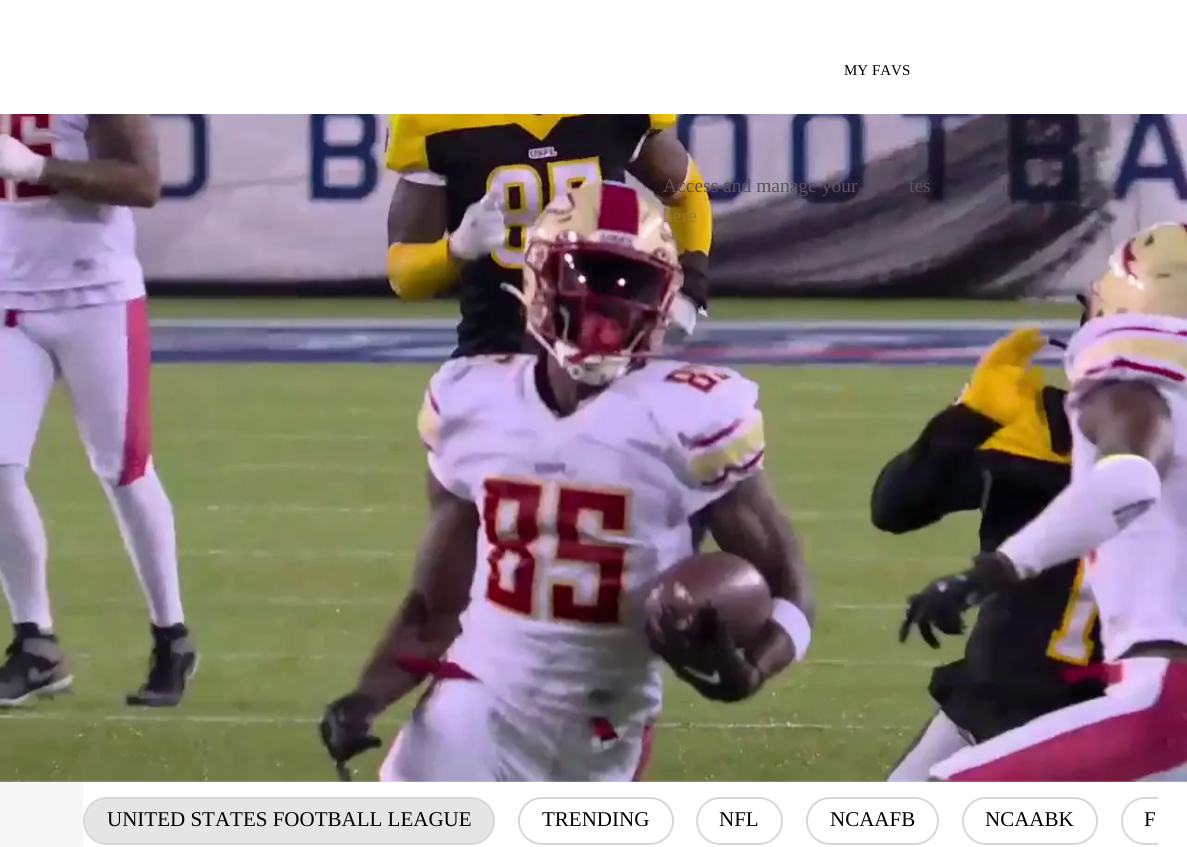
#include <cairo.h>
#include <math.h>
#include <stddef.h>

typedef struct { const char *family; double size; int italic, bold; unsigned color; } style_t;
static cairo_t *ctx;

static void ink(unsigned color) {
    cairo_set_source_rgb(ctx, (color >> 16) / 255.0, (color >> 8 & 255) / 255.0, (color & 255) / 255.0);
}

static void write(double x, double y, const char *s, const style_t *st) {
    cairo_select_font_face(ctx, st->family, st->italic ? CAIRO_FONT_SLANT_ITALIC : CAIRO_FONT_SLANT_NORMAL,
        st->bold ? CAIRO_FONT_WEIGHT_BOLD : CAIRO_FONT_WEIGHT_NORMAL);
    cairo_set_font_size(ctx, st->size);
    ink(st->color);
    cairo_move_to(ctx, x, y);
    cairo_show_text(ctx, s);
}

static void block(double x, double y, double w, double h, unsigned color) {
    ink(color);
    cairo_rectangle(ctx, x, y, w, h);
    cairo_fill(ctx);
}

static void round_path(double x, double y, double w, double h, double r) {
    cairo_new_sub_path(ctx);
    cairo_arc(ctx, x + w - r, y + h - r, r, 0, M_PI / 2);
    cairo_arc(ctx, x + r, y + h - r, r, M_PI / 2, M_PI);
    cairo_arc(ctx, x + r, y + r, r, M_PI, 1.5 * M_PI);
    cairo_arc(ctx, x + w - r, y + r, r, 1.5 * M_PI, 2 * M_PI);
    cairo_close_path(ctx);
}

static void paste(const char *path, double x, double y, double w, double h) {
    cairo_surface_t *image = cairo_image_surface_create_from_png(path);
    cairo_save(ctx);
    cairo_set_source_surface(ctx, image, x, y);
    cairo_rectangle(ctx, x, y, w, h);
    cairo_fill(ctx);
    cairo_restore(ctx);
    cairo_surface_destroy(image);
}

static const style_t s1 = {"Liberation Serif", 15, 0, 0, 0x000000};
static const style_t s2 = {"Liberation Serif", 19.5, 0, 0, 0x5d4f5b};
static const style_t s3 = {"Liberation Serif", 19.5, 0, 0, 0x9a7726};
static const style_t s4 = {"Liberation Serif", 21, 0, 0, 0x000000};

int main(void) {
    cairo_surface_t *surface = cairo_image_surface_create(CAIRO_FORMAT_RGB24, 1187, 847);
    ctx = cairo_create(surface);
    cairo_font_options_t *options = cairo_font_options_create();
    cairo_font_options_set_hint_metrics(options, CAIRO_HINT_METRICS_OFF);
    cairo_font_options_set_hint_style(options, CAIRO_HINT_STYLE_NONE);
    cairo_set_font_options(ctx, options);
    cairo_set_miter_limit(ctx, 4);
    ink(0xffffff);
    cairo_paint(ctx);
    write(844, 75, "MY FAVS", &s1);
    block(0, 780, 1106, 67, 0xf7f7f7);
    paste("pic1.png", 0, 114, 1187, 668);
    write(663, 192, "Access and manage your", &s2);
    write(909, 192, "tes", &s2);
    write(663, 222, "here", &s3);
    block(83, 782, 1023, 65, 0xffffff);
    ink(0xe5e5e5);
    round_path(84, 798, 410, 46, 23);
    cairo_fill_preserve(ctx);
    ink(0xd8d8d8);
    cairo_stroke(ctx);
    write(107, 826, "UNITED STATES FOOTBALL LEAGUE", &s4);
    round_path(519, 798, 154, 46, 23);
    ink(0xd8d8d8);
    cairo_stroke(ctx);
    write(542, 826, "TRENDING", &s4);
    round_path(697, 798, 85, 46, 23);
    ink(0xd8d8d8);
    cairo_stroke(ctx);
    write(719, 826, "NFL", &s4);
    round_path(807, 798, 131, 46, 23);
    ink(0xd8d8d8);
    cairo_stroke(ctx);
    write(830, 826, "NCAAFB", &s4);
    round_path(963, 798, 134, 46, 23);
    ink(0xd8d8d8);
    cairo_stroke(ctx);
    write(985, 826, "NCAABK", &s4);
    cairo_save(ctx);
    cairo_rectangle(ctx, 83, 797, 1075, 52);
    cairo_clip(ctx);
    round_path(1122, 798, 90, 46, 23);
    ink(0xd8d8d8);
    cairo_stroke(ctx);
    cairo_restore(ctx);
    write(1144, 826, "F", &s4);
    cairo_surface_write_to_png(surface, "screenshot.png");
    cairo_font_options_destroy(options);
    cairo_destroy(ctx);
    cairo_surface_destroy(surface);
    return 0;
}
